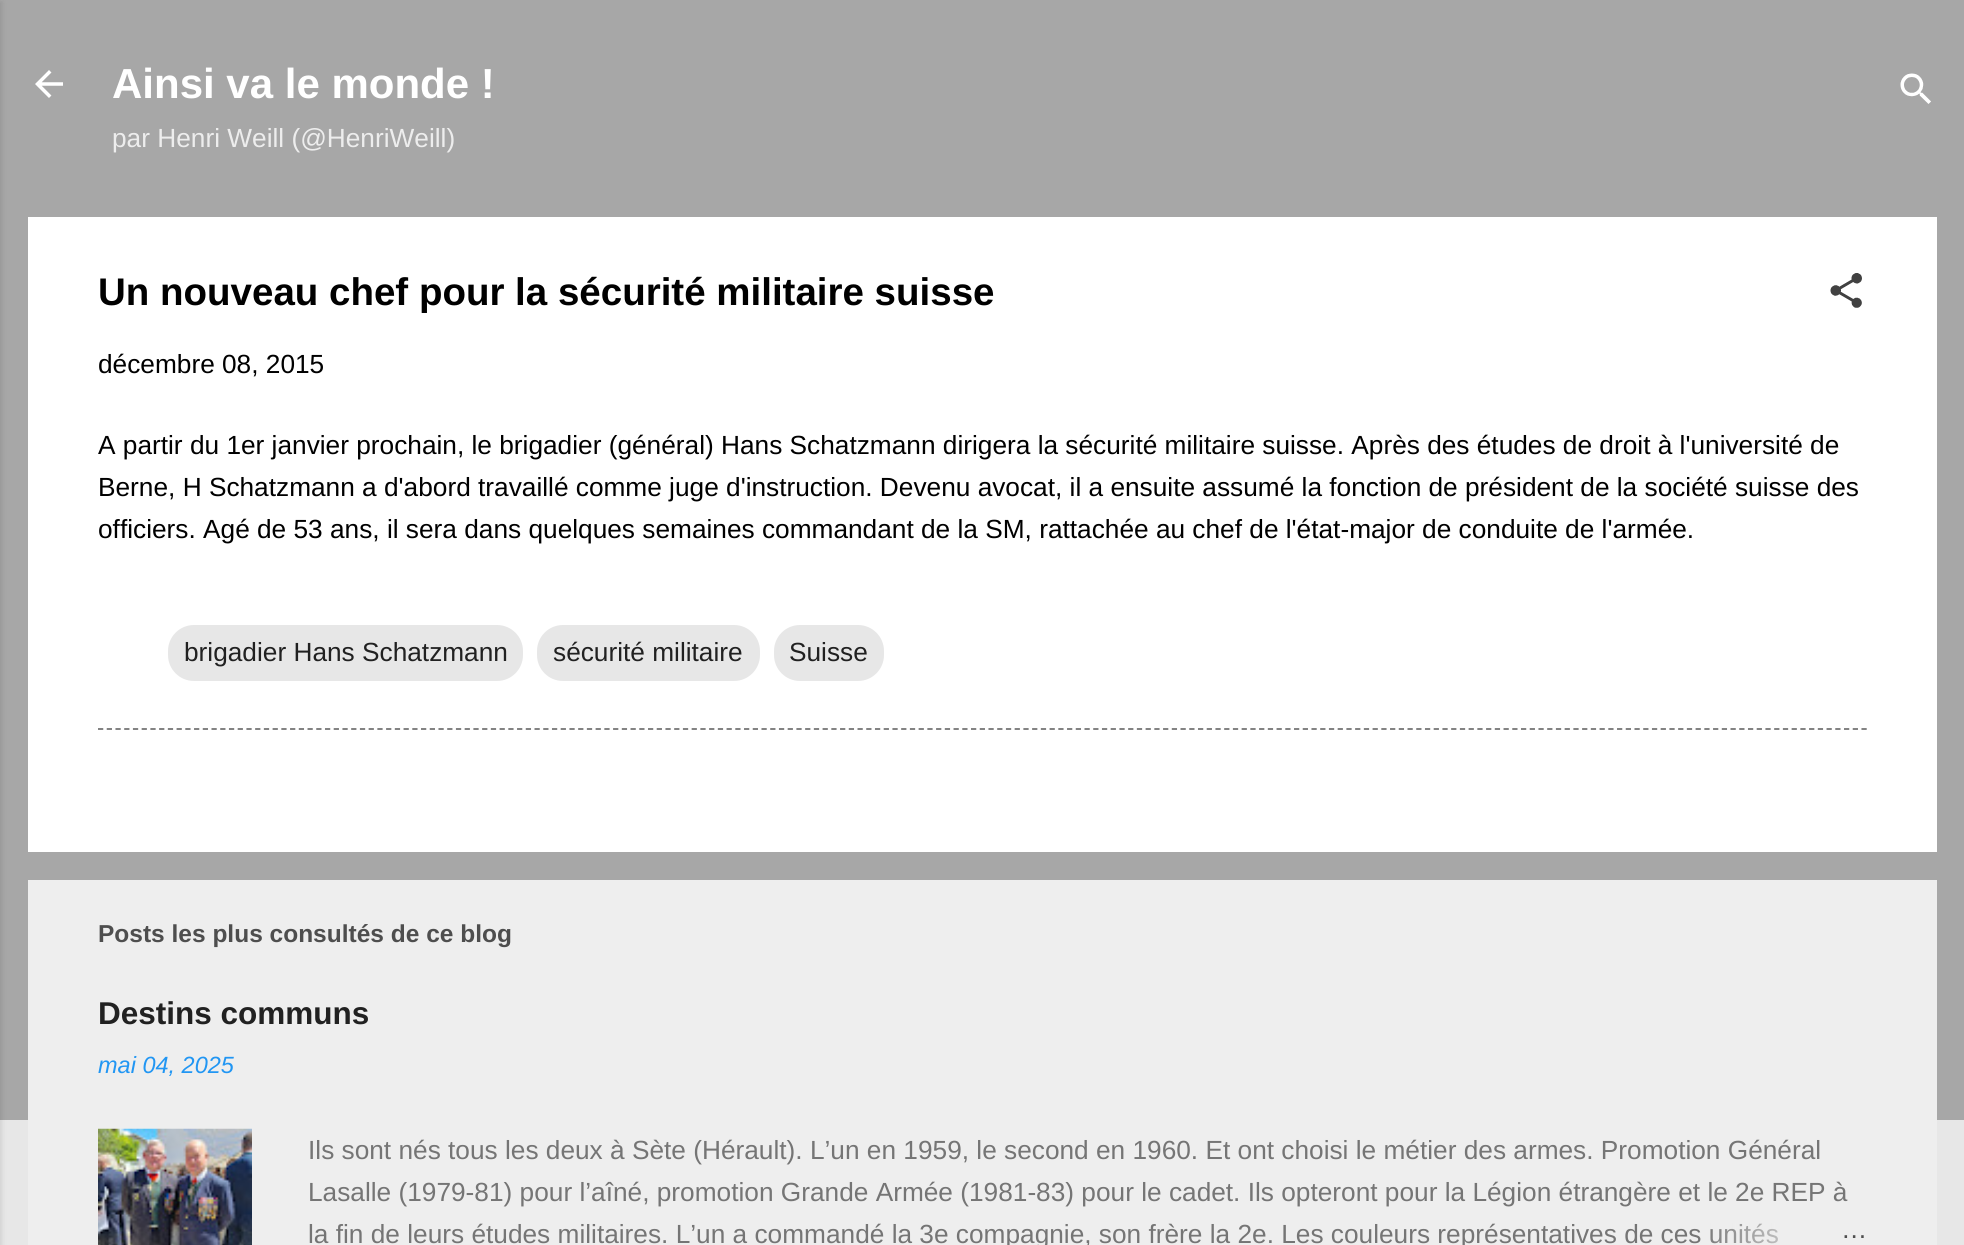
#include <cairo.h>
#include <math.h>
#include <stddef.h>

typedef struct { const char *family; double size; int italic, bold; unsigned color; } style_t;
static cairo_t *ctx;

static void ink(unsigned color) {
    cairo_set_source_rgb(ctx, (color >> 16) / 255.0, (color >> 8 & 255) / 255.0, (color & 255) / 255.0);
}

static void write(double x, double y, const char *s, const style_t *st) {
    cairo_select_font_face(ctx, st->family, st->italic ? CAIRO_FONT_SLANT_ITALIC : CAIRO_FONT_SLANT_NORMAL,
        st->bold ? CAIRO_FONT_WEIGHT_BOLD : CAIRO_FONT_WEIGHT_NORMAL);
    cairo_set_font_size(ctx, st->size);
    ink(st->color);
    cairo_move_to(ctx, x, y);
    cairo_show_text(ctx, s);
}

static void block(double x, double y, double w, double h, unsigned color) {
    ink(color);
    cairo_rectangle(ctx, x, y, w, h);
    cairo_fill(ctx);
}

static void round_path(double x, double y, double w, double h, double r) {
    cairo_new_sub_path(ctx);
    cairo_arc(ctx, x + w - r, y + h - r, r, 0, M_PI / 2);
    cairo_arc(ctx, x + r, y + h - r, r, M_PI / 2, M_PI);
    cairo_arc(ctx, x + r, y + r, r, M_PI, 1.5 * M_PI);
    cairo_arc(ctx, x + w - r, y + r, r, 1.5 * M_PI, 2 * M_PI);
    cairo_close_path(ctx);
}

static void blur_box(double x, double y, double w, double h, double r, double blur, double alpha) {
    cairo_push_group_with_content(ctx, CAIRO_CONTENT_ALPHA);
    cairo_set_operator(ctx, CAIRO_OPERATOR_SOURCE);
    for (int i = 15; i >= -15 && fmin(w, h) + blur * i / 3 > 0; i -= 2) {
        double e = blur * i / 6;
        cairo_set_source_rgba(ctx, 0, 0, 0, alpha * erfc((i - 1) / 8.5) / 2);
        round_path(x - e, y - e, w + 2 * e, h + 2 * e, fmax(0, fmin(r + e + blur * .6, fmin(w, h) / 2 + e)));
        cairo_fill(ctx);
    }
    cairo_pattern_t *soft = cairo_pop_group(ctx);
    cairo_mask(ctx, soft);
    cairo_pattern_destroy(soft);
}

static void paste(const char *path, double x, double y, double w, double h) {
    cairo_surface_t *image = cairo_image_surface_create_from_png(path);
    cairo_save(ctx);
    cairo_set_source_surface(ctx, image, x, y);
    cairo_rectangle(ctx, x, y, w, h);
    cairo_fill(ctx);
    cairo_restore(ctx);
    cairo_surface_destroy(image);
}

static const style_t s1 = {"Liberation Sans", 42, 0, 1, 0xffffff};
static const style_t s2 = {"Liberation Sans", 26.25, 0, 0, 0xededed};
static const style_t s3 = {"Liberation Sans", 38.5, 0, 1, 0x000000};
static const style_t s4 = {"Liberation Sans", 26.25, 0, 0, 0x000000};
static const style_t s5 = {"Liberation Sans", 26.25, 0, 0, 0x212121};
static const style_t s6 = {"Liberation Sans", 24.5, 0, 1, 0x4e4e4e};
static const style_t s7 = {"Liberation Sans", 31.5, 0, 1, 0x212121};
static const style_t s8 = {"Liberation Sans", 23.5, 1, 0, 0x2196f3};
static const style_t s9 = {"Liberation Sans", 26.25, 0, 0, 0x757575};
static const style_t s10 = {"Liberation Sans", 26.25, 0, 0, 0x4e4e4e};

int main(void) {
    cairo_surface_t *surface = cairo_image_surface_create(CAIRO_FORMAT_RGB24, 1964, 1245);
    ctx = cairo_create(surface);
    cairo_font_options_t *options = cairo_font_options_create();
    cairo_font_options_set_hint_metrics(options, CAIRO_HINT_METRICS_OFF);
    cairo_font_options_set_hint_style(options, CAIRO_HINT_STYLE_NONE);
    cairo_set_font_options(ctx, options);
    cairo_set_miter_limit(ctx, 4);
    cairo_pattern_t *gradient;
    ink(0xe7e7e7);
    cairo_paint(ctx);
    block(0, 0, 1964, 1120, 0xa7a7a7);
    ink(0x000000);
    blur_box(-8, 2, 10, 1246, 0, 2.5, 0.1);
    paste("pic1.png", 35, 70, 28, 28);
    write(112, 98, "Ainsi va le monde !", &s1);
    write(112, 147, "par Henri Weill (@HenriWeill)", &s2);
    paste("pic2.png", 1900, 73, 31, 31);
    block(28, 217, 1909, 635, 0xffffff);
    write(98, 305, "Un nouveau chef pour la sécurité militaire suisse", &s3);
    paste("pic3.png", 1830, 273, 32, 35);
    write(98, 373, "décembre 08, 2015", &s4);
    write(98, 454, "A partir du 1er janvier prochain, le brigadier (général) Hans Schatzmann dirigera la sécurité militaire suisse. Après des études de droit à l'université de", &s4);
    write(98, 496, "Berne, H Schatzmann a d'abord travaillé comme juge d'instruction. Devenu avocat, il a ensuite assumé la fonction de président de la société suisse des", &s4);
    write(98, 538, "officiers. Agé de 53 ans, il sera dans quelques semaines commandant de la SM, rattachée au chef de l'état-major de conduite de l'armée.", &s4);
    ink(0xe7e7e7);
    round_path(169, 626, 353, 54, 25);
    cairo_fill_preserve(ctx);
    cairo_stroke(ctx);
    write(184, 661, "brigadier Hans Schatzmann", &s5);
    ink(0xe7e7e7);
    round_path(538, 626, 221, 54, 25);
    cairo_fill_preserve(ctx);
    cairo_stroke(ctx);
    write(553, 661, "sécurité militaire", &s5);
    ink(0xe7e7e7);
    round_path(775, 626, 108, 54, 25);
    cairo_fill_preserve(ctx);
    cairo_stroke(ctx);
    write(789, 661, "Suisse", &s5);
    cairo_new_path(ctx);
    cairo_move_to(ctx, 98, 729);
    cairo_line_to(ctx, 1867, 729);
    ink(0x757575);
    cairo_set_line_width(ctx, 1.8);
    cairo_set_dash(ctx, (double[]){5.25, 3.48}, 2, 0);
    cairo_stroke(ctx);
    block(28, 880, 1909, 365, 0xeeeeee);
    write(98, 942, "Posts les plus consultés de ce blog", &s6);
    write(98, 1024, "Destins communs", &s7);
    write(98, 1073, "mai 04, 2025", &s8);
    paste("pic4.png", 98, 1128, 154, 117);
    write(308, 1159, "Ils sont nés tous les deux à Sète (Hérault). L’un en 1959, le second en 1960. Et ont choisi le métier des armes. Promotion Général", &s9);
    write(308, 1201, "Lasalle (1979-81) pour l’aîné, promotion Grande Armée (1981-83) pour le cadet. Ils opteront pour la Légion étrangère et le 2e REP à", &s9);
    write(308, 1243, "la fin de leurs études militaires. L’un a commandé la 3e compagnie, son frère la 2e. Les couleurs représentatives de ces unités", &s9);
    gradient = cairo_pattern_create_linear(1867, 1234, 1699, 1234);
    cairo_pattern_add_color_stop_rgba(gradient, 0, 0.933, 0.933, 0.933, 1);
    cairo_pattern_add_color_stop_rgba(gradient, 0.2, 0.933, 0.933, 0.933, 1);
    cairo_pattern_add_color_stop_rgba(gradient, 1, 0.933, 0.933, 0.933, 0);
    cairo_set_source(ctx, gradient);
    cairo_pattern_destroy(gradient);
    cairo_rectangle(ctx, 1710, 1223, 68, 21);
    cairo_fill(ctx);
    write(1841, 1238, "…", &s10);
    cairo_surface_write_to_png(surface, "screenshot.png");
    cairo_font_options_destroy(options);
    cairo_destroy(ctx);
    cairo_surface_destroy(surface);
    return 0;
}
